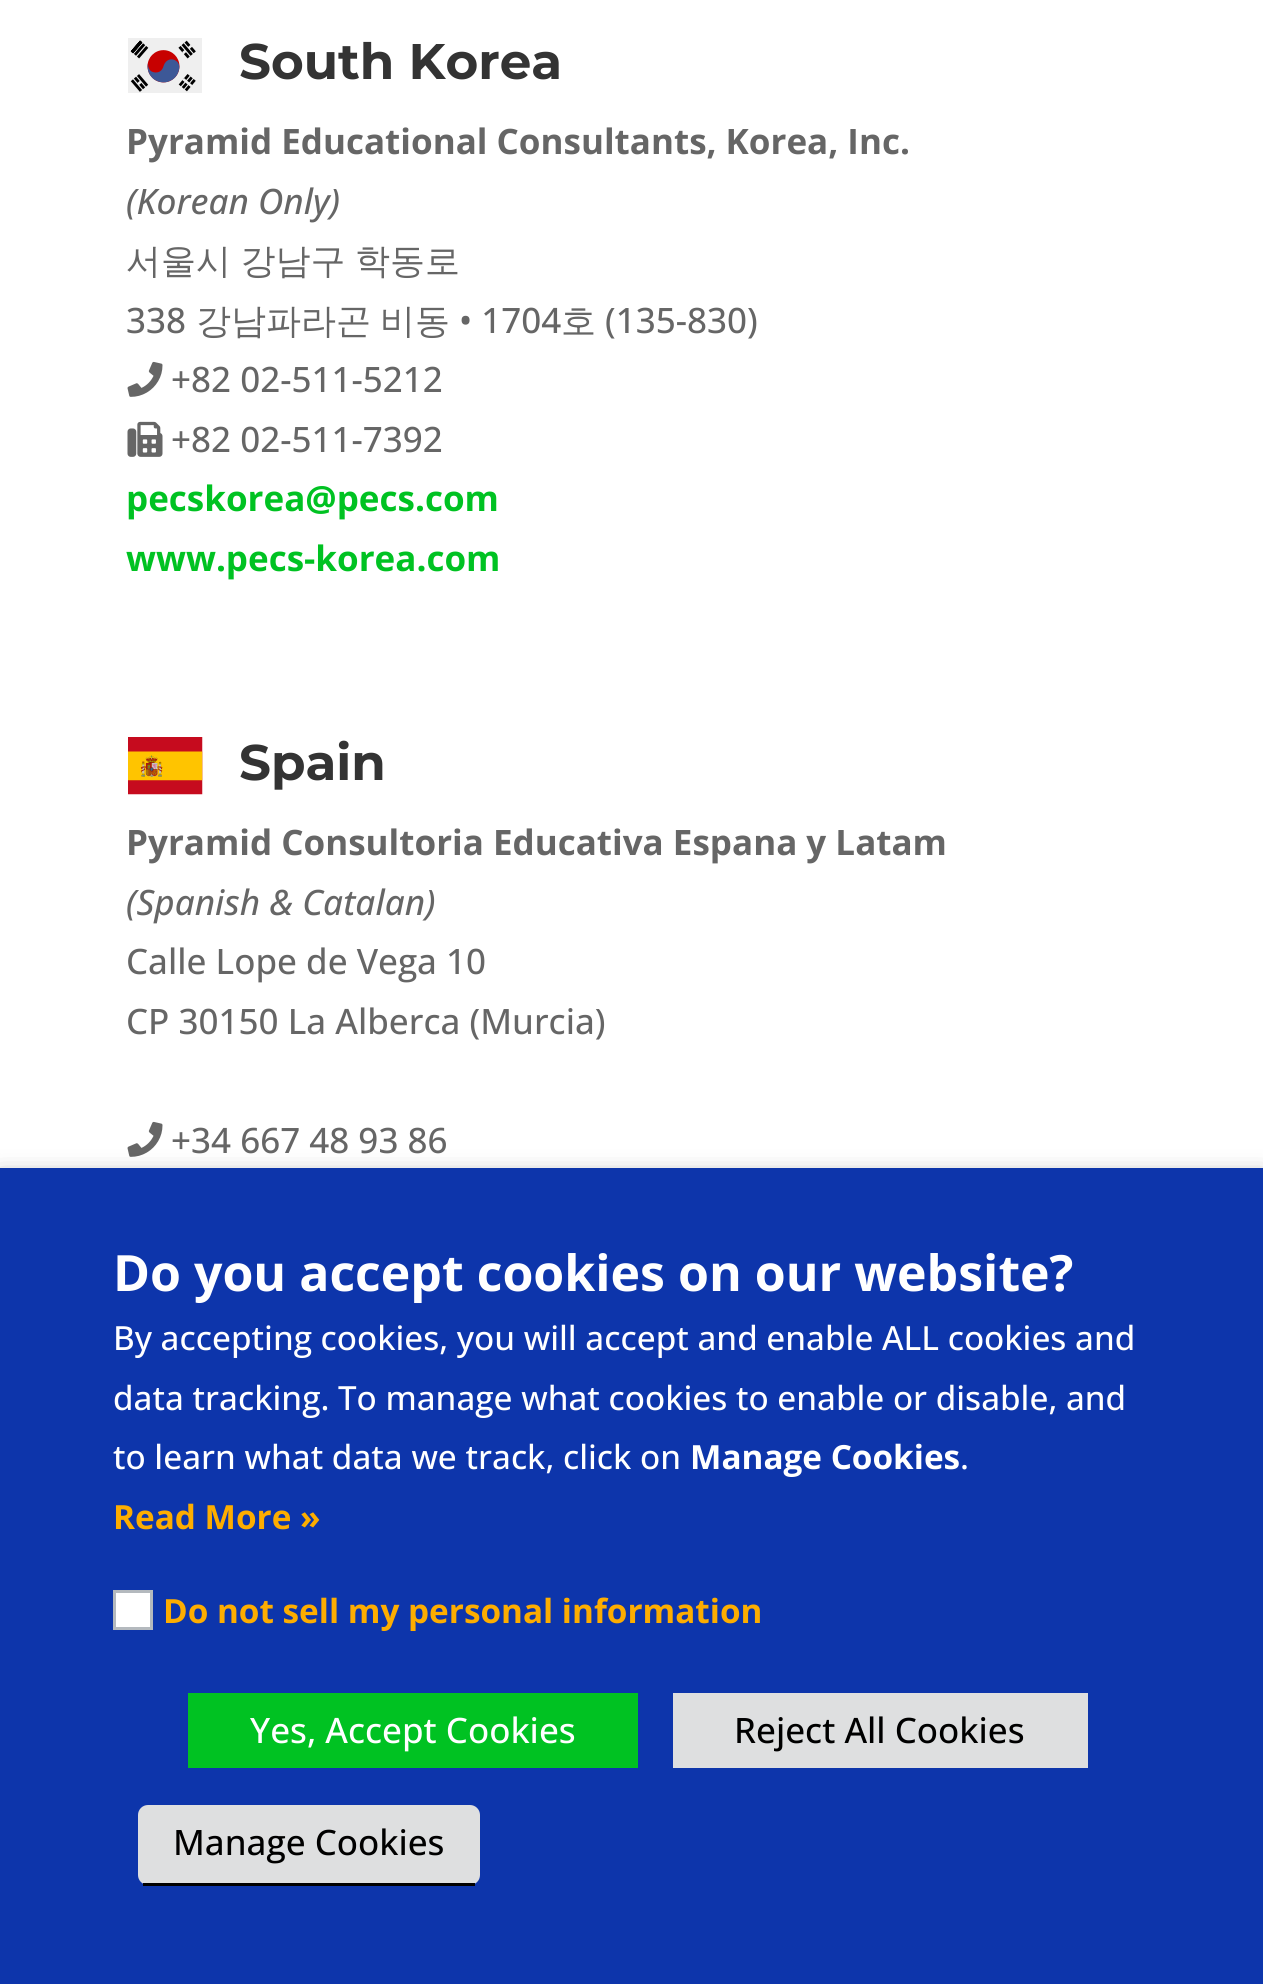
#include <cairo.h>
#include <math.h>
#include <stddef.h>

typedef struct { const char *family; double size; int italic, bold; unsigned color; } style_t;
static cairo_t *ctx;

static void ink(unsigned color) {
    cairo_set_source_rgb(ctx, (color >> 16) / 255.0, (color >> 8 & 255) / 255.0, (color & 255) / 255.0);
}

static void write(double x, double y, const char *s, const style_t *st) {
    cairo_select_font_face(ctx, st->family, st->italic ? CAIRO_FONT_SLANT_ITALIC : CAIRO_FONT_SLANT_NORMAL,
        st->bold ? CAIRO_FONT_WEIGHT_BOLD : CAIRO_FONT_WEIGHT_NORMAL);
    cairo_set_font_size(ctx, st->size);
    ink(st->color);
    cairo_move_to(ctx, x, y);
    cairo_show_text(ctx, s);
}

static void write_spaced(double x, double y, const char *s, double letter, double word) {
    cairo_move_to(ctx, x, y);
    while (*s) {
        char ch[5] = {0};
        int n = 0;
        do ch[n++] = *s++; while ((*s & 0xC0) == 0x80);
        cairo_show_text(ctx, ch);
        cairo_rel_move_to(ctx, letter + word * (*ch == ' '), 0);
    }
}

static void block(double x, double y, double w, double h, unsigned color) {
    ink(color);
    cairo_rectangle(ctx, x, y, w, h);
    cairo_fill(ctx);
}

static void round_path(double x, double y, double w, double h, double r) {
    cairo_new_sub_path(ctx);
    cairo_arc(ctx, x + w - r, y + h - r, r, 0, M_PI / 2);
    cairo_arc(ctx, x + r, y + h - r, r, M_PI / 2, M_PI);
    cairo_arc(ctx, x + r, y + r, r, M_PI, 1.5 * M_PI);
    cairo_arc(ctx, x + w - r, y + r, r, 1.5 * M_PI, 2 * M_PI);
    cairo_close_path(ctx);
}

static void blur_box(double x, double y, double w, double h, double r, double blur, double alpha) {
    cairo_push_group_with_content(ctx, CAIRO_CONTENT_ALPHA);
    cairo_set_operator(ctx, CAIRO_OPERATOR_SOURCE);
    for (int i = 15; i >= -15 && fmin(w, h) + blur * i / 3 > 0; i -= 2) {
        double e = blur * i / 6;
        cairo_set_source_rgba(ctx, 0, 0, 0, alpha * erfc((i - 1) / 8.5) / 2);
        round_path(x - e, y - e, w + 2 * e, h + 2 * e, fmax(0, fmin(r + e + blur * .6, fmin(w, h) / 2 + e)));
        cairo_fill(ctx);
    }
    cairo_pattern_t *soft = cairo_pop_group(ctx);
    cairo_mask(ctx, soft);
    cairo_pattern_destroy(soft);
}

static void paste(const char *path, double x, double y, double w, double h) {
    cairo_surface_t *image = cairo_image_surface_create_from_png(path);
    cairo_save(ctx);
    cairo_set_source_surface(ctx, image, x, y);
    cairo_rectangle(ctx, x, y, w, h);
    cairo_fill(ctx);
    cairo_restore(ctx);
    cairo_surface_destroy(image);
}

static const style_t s1 = {"Montserrat", 50, 0, 1, 0x333333};
static const style_t s2 = {"Open Sans", 35, 0, 1, 0x666666};
static const style_t s3 = {"Open Sans Medium", 35, 1, 0, 0x666666};
static const style_t s4 = {"Open Sans Medium", 35, 0, 0, 0x666666};
static const style_t s5 = {"WenQuanYi Zen Hei Medium", 35, 0, 0, 0x666666};
static const style_t s6 = {"Open Sans", 35, 0, 1, 0x00c222};
static const style_t s7 = {"Open Sans", 50, 0, 1, 0xffffff};
static const style_t s8 = {"Open Sans Medium", 33.3, 0, 0, 0xffffff};
static const style_t s9 = {"Open Sans", 33.3, 0, 1, 0xffffff};
static const style_t s10 = {"Open Sans", 33.3, 0, 1, 0xfdad00};
static const style_t s11 = {"Open Sans Medium", 35, 0, 0, 0xffffff};
static const style_t s12 = {"Open Sans Medium", 35, 0, 0, 0x000000};

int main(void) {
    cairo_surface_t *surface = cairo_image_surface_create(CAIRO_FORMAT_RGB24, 1263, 1984);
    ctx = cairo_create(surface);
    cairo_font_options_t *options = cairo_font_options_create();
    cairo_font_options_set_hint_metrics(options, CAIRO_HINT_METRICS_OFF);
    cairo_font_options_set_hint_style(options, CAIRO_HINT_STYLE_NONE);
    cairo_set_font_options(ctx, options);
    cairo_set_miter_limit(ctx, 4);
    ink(0xffffff);
    cairo_paint(ctx);
    paste("pic1.png", 128, 38, 74, 55);
    write(239, 79, "South Korea", &s1);
    write(126, 154, "Pyramid Educational Consultants, Korea, Inc.", &s2);
    write(126, 214, "(Korean Only)", &s3);
    cairo_select_font_face(ctx, "WenQuanYi Zen Hei Medium", CAIRO_FONT_SLANT_NORMAL, CAIRO_FONT_WEIGHT_NORMAL);
    write_spaced(126, 273, "서울시 강남구 학동로", 0, -1);
    write(126, 333, "338", &s4);
    write(196, 333, "강남파라곤", &s5);
    write(380, 333, "비동", &s5);
    write(459, 333, "• 1704", &s4);
    write(561, 333, "호", &s5);
    write(605, 333, "(135-830)", &s4);
    paste("pic2.png", 127, 361, 36, 36);
    write(171, 392, "+82 02-511-5212", &s4);
    paste("pic3.png", 127, 421, 36, 36);
    write(171, 452, "+82 02-511-7392", &s4);
    write(126, 511, "pecskorea@pecs.com", &s6);
    write(126, 571, "www.pecs-korea.com", &s6);
    paste("pic4.png", 128, 737, 75, 58);
    write(239, 780, "Spain", &s1);
    write(126, 855, "Pyramid Consultoria Educativa Espana y Latam", &s2);
    write(126, 915, "(Spanish & Catalan)", &s3);
    write(126, 974, "Calle Lope de Vega 10", &s4);
    write(126, 1034, "CP 30150 La Alberca (Murcia)", &s4);
    paste("pic2.png", 127, 1121, 36, 36);
    write(171, 1153, "+34 667 48 93 86", &s4);
    ink(0x000000);
    blur_box(0, 1180, 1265, 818, 0, 12.5, 0.5);
    block(0, 1168, 1263, 816, 0x0d35ab);
    write(113, 1291, "Do you accept cookies on our website?", &s7);
    write(113, 1350, "By accepting cookies, you will accept and enable ALL cookies and", &s8);
    write(113, 1410, "data tracking. To manage what cookies to enable or disable, and", &s8);
    write(113, 1469, "to learn what data we track, click on", &s8);
    write(690, 1469, "Manage Cookies", &s9);
    write(960, 1469, ".", &s8);
    write(113, 1529, "Read More »", &s10);
    ink(0xffffff);
    cairo_rectangle(ctx, 114.5, 1591.5, 37, 37);
    cairo_fill_preserve(ctx);
    ink(0xb4b9be);
    cairo_set_line_width(ctx, 3);
    cairo_stroke(ctx);
    write(163, 1623, "Do not sell my personal information", &s10);
    block(188, 1693, 450, 75, 0x00c222);
    write(250, 1743, "Yes, Accept Cookies", &s11);
    block(673, 1693, 415, 75, 0xdedfe0);
    write(734, 1743, "Reject All Cookies", &s12);
    ink(0xdedfe0);
    round_path(138, 1805, 342, 80, 10);
    cairo_fill(ctx);
    block(143, 1883, 332, 3, 0x000000);
    write(173, 1855, "Manage Cookies", &s12);
    cairo_surface_write_to_png(surface, "screenshot.png");
    cairo_font_options_destroy(options);
    cairo_destroy(ctx);
    cairo_surface_destroy(surface);
    return 0;
}
